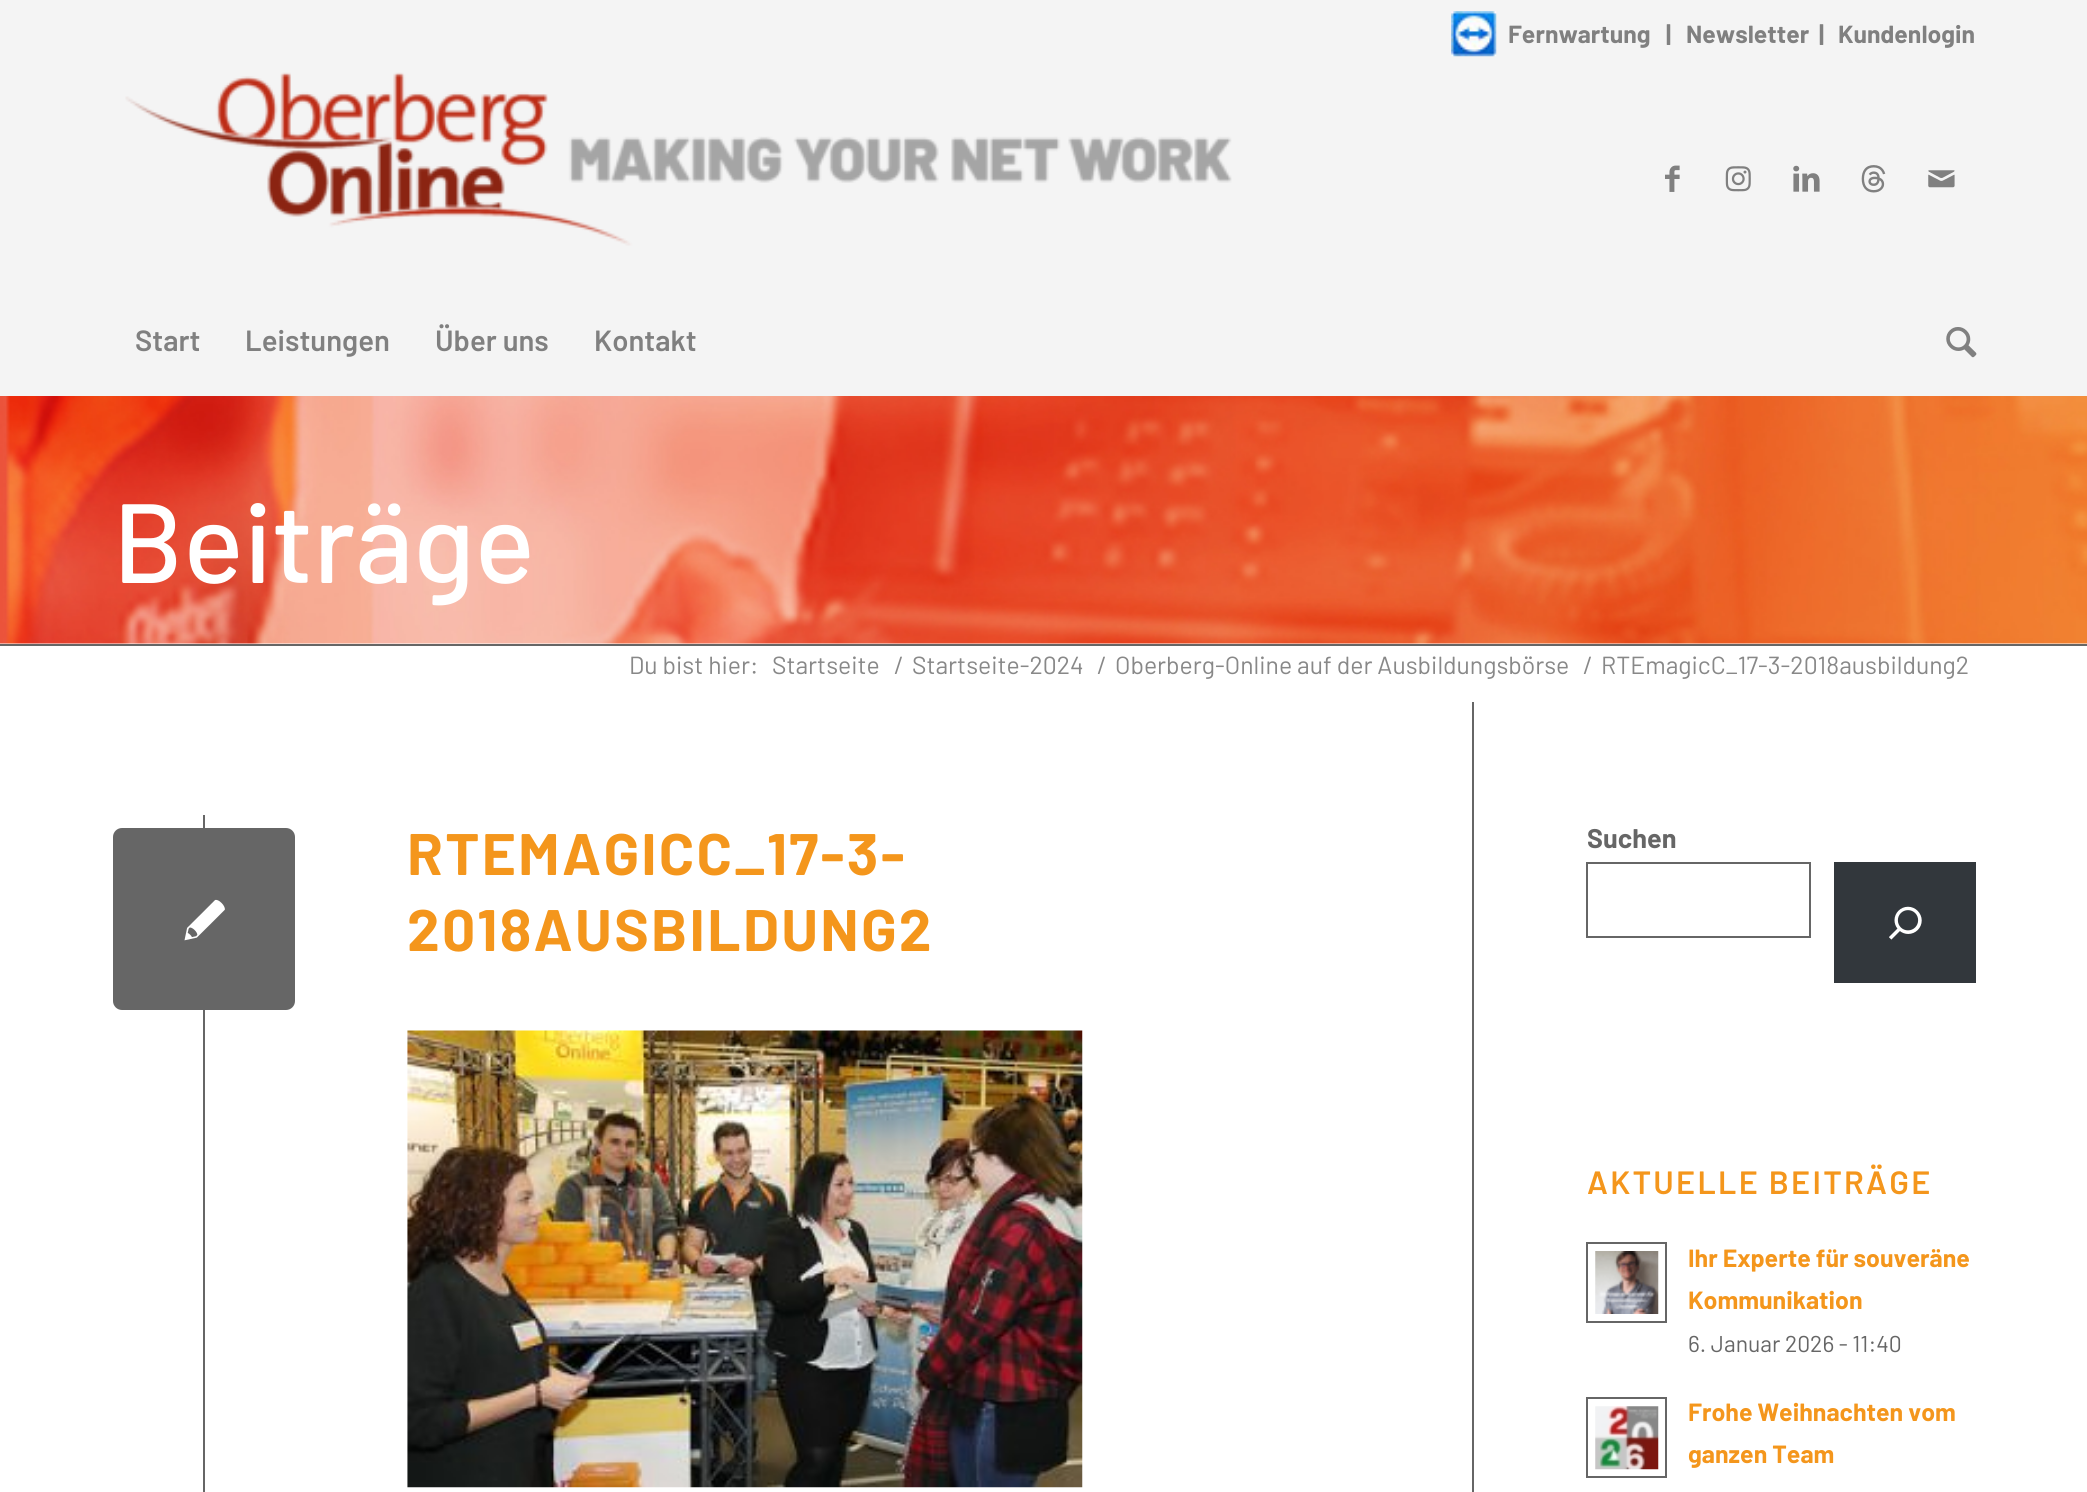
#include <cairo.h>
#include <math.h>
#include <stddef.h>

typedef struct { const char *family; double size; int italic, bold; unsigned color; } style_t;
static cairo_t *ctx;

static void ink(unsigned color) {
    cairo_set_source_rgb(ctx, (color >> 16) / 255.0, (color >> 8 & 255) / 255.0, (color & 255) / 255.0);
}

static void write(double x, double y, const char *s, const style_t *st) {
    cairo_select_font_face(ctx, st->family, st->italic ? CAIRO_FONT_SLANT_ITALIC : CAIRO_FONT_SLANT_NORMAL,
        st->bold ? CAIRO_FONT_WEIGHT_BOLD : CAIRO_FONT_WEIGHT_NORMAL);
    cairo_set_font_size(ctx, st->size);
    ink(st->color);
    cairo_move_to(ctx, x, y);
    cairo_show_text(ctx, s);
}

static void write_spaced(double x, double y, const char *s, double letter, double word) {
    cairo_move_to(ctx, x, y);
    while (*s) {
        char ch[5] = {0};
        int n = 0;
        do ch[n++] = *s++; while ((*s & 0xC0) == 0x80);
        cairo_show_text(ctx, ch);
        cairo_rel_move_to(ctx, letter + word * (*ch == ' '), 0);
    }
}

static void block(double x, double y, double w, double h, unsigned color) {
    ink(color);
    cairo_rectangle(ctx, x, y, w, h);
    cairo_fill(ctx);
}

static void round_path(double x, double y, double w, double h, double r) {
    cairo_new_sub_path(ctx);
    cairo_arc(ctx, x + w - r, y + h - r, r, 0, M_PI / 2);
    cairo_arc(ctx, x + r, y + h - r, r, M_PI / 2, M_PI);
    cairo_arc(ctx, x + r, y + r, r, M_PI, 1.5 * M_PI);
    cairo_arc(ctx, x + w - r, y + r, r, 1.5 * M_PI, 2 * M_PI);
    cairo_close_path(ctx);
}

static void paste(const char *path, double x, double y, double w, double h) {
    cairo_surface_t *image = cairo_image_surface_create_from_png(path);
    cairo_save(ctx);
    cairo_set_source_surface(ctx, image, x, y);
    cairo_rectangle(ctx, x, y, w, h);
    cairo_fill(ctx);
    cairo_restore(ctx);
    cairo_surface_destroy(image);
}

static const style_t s1 = {"Barlow", 24.75, 0, 1, 0x808080};
static const style_t s2 = {"Barlow SemiBold", 29.25, 0, 0, 0x808080};
static const style_t s3 = {"Barlow Medium", 112.5, 0, 0, 0xffffff};
static const style_t s4 = {"Barlow", 24.75, 0, 0, 0x888888};
static const style_t s5 = {"Barlow", 27, 0, 1, 0x666666};
static const style_t s6 = {"Barlow", 24.9, 0, 1, 0xf4961c};
static const style_t s7 = {"Barlow", 22.9, 0, 0, 0x666666};

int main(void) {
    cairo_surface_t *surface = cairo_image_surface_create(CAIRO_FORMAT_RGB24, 2087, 1492);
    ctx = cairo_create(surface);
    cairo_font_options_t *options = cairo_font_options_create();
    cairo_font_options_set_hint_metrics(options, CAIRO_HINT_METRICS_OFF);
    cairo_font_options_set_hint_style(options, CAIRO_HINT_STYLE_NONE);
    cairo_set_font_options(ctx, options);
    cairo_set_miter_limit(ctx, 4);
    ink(0xffffff);
    cairo_paint(ctx);
    block(0, 0, 2087, 396, 0xf4f4f4);
    paste("pic1.png", 1451, 11, 46, 46);
    write(1508, 43, "Fernwartung", &s1);
    write(1666, 43, "|", &s1);
    write(1686, 43, "Newsletter", &s1);
    write(1819, 43, "|", &s1);
    write(1838, 43, "Kundenlogin", &s1);
    paste("pic2.png", 125, 72, 1107, 174);
    paste("pic3.png", 1665, 165, 15, 27);
    paste("pic4.png", 1725, 166, 26, 26);
    paste("pic5.png", 1793, 165, 27, 27);
    paste("pic6.png", 1861, 165, 25, 28);
    paste("pic7.png", 1928, 170, 27, 18);
    write(135, 351, "Start", &s2);
    write(245, 351, "Leistungen", &s2);
    write(435, 351, "Über uns", &s2);
    write(594, 351, "Kontakt", &s2);
    paste("pic8.png", 1946, 327, 31, 31);
    paste("pic9.png", 0, 396, 2087, 248);
    write(113, 583, "Beiträge", &s3);
    write(629, 674, "Du bist hier:", &s4);
    write(772, 674, "Startseite", &s4);
    write(894, 674, "/", &s4);
    write(912, 674, "Startseite-2024", &s4);
    write(1097, 674, "/", &s4);
    write(1115, 674, "Oberberg-Online auf der Ausbildungsbörse", &s4);
    write(1583, 674, "/", &s4);
    write(1601, 674, "RTEmagicC_17-3-2018ausbildung2", &s4);
    block(0, 644, 2087, 2, 0x666666);
    block(1472, 702, 2, 790, 0x666666);
    block(203, 815, 2, 677, 0x666666);
    round_path(113, 828, 182, 182, 9);
    cairo_fill(ctx);
    paste("pic10.png", 184, 899, 41, 42);
    cairo_select_font_face(ctx, "Barlow", CAIRO_FONT_SLANT_NORMAL, CAIRO_FONT_WEIGHT_BOLD);
    cairo_set_font_size(ctx, 58.5);
    ink(0xf4961c);
    write_spaced(407, 875, "RTEMAGICC_17-3-", 2.25, 0);
    write_spaced(407, 951, "2018AUSBILDUNG2", 2.25, 0);
    paste("pic11.png", 407, 1030, 676, 458);
    write(1587, 848, "Suchen", &s5);
    cairo_rectangle(ctx, 1587, 863, 223, 74);
    cairo_stroke(ctx);
    block(1834, 862, 142, 121, 0x32373c);
    paste("pic12.png", 1889, 906, 33, 34);
    cairo_select_font_face(ctx, "Barlow SemiBold", CAIRO_FONT_SLANT_NORMAL, CAIRO_FONT_WEIGHT_NORMAL);
    cairo_set_font_size(ctx, 32.25);
    ink(0xf4961c);
    write_spaced(1587, 1194, "AKTUELLE BEITRÄGE", 2.25, 0);
    cairo_rectangle(ctx, 1587, 1243, 79, 79);
    ink(0x666666);
    cairo_stroke(ctx);
    paste("pic13.png", 1595, 1251, 64, 63);
    write(1688, 1267, "Ihr Experte für souveräne", &s6);
    write(1688, 1309, "Kommunikation", &s6);
    write(1688, 1352, "6. Januar 2026 - 11:40", &s7);
    cairo_rectangle(ctx, 1587, 1398, 79, 79);
    cairo_stroke(ctx);
    paste("pic14.png", 1595, 1406, 64, 64);
    write(1688, 1421, "Frohe Weihnachten vom", &s6);
    write(1688, 1463, "ganzen Team", &s6);
    cairo_surface_write_to_png(surface, "screenshot.png");
    cairo_font_options_destroy(options);
    cairo_destroy(ctx);
    cairo_surface_destroy(surface);
    return 0;
}
